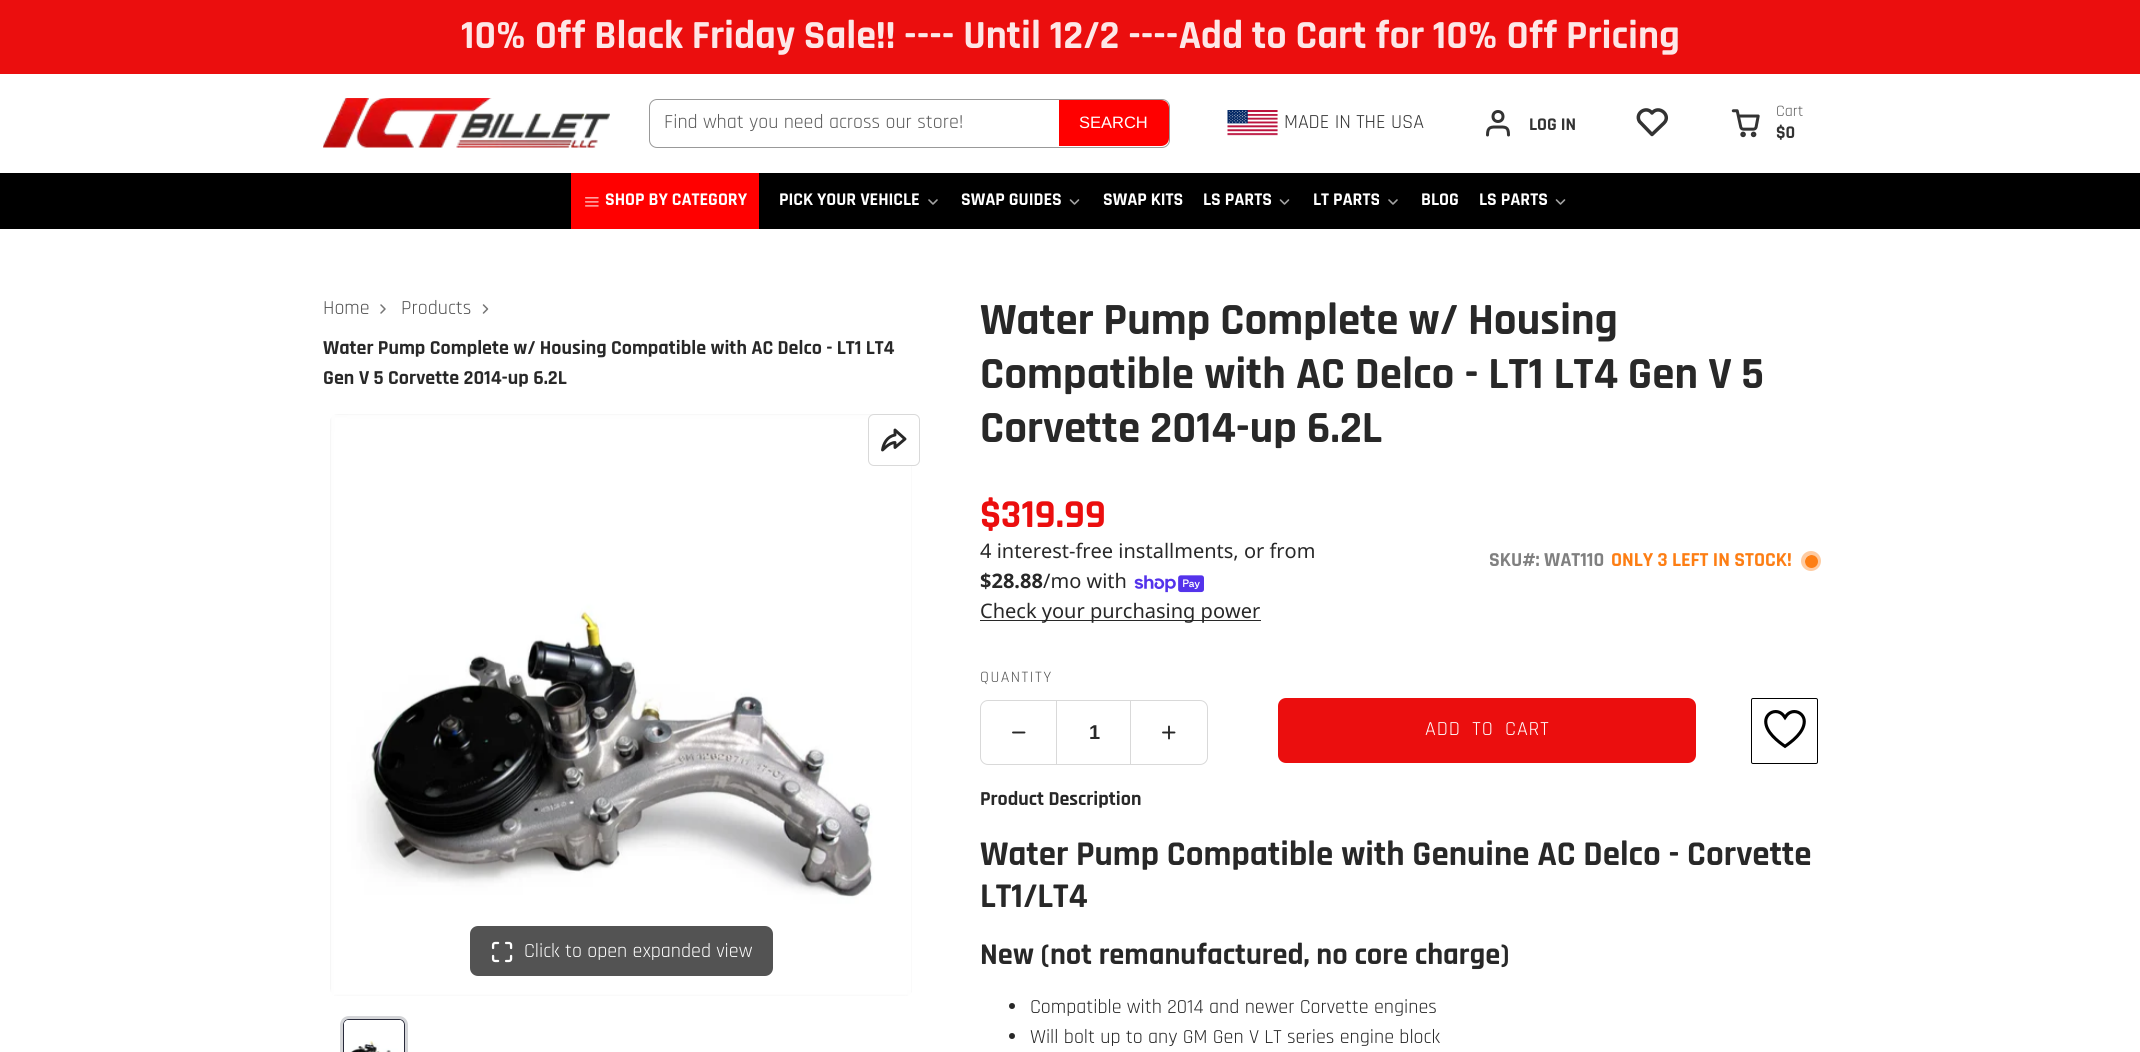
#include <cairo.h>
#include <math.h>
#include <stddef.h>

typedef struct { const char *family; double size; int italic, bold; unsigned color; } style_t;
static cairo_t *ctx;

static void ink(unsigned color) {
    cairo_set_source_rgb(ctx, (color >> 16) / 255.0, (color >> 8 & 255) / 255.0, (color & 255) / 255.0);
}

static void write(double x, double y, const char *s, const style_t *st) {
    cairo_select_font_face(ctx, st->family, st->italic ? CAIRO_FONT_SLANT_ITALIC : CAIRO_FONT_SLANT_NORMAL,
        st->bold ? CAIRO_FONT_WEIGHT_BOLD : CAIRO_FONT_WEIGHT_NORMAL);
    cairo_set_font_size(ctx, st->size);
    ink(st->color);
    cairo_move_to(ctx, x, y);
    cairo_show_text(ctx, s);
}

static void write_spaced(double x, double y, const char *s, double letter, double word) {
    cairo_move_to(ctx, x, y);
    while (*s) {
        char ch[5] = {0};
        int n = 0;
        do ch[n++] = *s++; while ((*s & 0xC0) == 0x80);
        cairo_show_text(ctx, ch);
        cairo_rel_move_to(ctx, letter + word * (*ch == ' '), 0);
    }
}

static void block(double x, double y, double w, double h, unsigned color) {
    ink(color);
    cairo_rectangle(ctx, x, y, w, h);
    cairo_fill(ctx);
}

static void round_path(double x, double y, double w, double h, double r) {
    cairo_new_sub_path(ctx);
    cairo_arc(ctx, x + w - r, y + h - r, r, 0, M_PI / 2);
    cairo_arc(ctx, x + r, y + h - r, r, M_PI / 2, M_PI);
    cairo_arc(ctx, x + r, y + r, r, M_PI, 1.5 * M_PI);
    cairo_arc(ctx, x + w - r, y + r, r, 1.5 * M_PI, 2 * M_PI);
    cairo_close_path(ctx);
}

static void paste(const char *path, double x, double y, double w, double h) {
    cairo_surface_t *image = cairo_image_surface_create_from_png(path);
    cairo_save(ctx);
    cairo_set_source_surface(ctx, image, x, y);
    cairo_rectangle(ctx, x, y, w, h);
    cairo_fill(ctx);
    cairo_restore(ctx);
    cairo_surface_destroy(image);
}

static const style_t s1 = {"Rajdhani", 40.25, 0, 1, 0xfde7e7};
static const style_t s2 = {"Rajdhani", 20, 0, 0, 0x5c5c5c};
static const style_t s3 = {"Liberation Sans", 16.5, 0, 0, 0xffffff};
static const style_t s4 = {"Rajdhani", 20, 0, 0, 0x333333};
static const style_t s5 = {"Rajdhani", 18, 0, 1, 0x333333};
static const style_t s6 = {"Rajdhani", 16, 0, 0, 0x5c5c5c};
static const style_t s7 = {"Rajdhani", 18, 0, 1, 0xffffff};
static const style_t s8 = {"Rajdhani", 20, 0, 0, 0x535353};
static const style_t s9 = {"Rajdhani", 20, 0, 1, 0x282828};
static const style_t s10 = {"Rajdhani", 20, 0, 0, 0xffffff};
static const style_t s11 = {"Rajdhani", 45, 0, 1, 0x282828};
static const style_t s12 = {"Rajdhani", 40, 0, 1, 0xeb0e0e};
static const style_t s13 = {"Noto Sans", 20, 0, 0, 0x282828};
static const style_t s14 = {"Noto Sans", 20, 0, 1, 0x282828};
static const style_t s15 = {"Rajdhani", 20, 0, 1, 0x808080};
static const style_t s16 = {"Rajdhani", 20, 0, 1, 0xfd7e14};
static const style_t s17 = {"Liberation Sans", 20, 0, 1, 0x282828};
static const style_t s18 = {"Rajdhani", 35, 0, 1, 0x282828};
static const style_t s19 = {"Rajdhani", 30.4, 0, 1, 0x282828};
static const style_t s20 = {"Rajdhani", 20, 0, 0, 0x282828};

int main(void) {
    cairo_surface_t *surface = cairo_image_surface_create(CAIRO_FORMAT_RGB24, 2140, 1052);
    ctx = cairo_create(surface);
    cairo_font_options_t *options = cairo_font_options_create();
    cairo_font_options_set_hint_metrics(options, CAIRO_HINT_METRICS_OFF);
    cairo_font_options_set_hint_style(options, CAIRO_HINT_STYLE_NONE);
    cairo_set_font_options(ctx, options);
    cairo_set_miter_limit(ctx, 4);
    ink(0xffffff);
    cairo_paint(ctx);
    block(0, 0, 2140, 74, 0xeb0e0e);
    write(461, 48, "10% Off Black Friday Sale!! ---- Until 12/2 ----Add to Cart for 10% Off Pricing", &s1);
    paste("pic1.png", 323, 98, 287, 50);
    round_path(649.5, 99.5, 520, 48, 7.5);
    ink(0x999999);
    cairo_set_line_width(ctx, 1);
    cairo_stroke(ctx);
    write(664, 128, "Find what you need across our store!", &s2);
    ink(0xff0000);
    cairo_new_path(ctx);
    cairo_move_to(ctx, 1059, 100);
    cairo_line_to(ctx, 1161, 100);
    cairo_curve_to(ctx, 1165.5, 100, 1169, 103.5, 1169, 108);
    cairo_line_to(ctx, 1169, 138);
    cairo_curve_to(ctx, 1169, 142.5, 1165.5, 146, 1161, 146);
    cairo_line_to(ctx, 1059, 146);
    cairo_close_path(ctx);
    cairo_fill(ctx);
    write(1079, 128, "SEARCH", &s3);
    paste("pic2.png", 1227, 110, 51, 26);
    write(1284, 128, "MADE IN THE USA", &s4);
    cairo_new_path(ctx);
    cairo_move_to(ctx, 1508.5, 135);
    cairo_curve_to(ctx, 1508.5, 126.5, 1505.5, 127, 1498, 127);
    cairo_curve_to(ctx, 1491, 127, 1487.5, 126.5, 1487.5, 135);
    cairo_set_line_width(ctx, 3);
    cairo_set_line_cap(ctx, CAIRO_LINE_CAP_ROUND);
    cairo_set_line_join(ctx, CAIRO_LINE_JOIN_ROUND);
    cairo_stroke(ctx);
    cairo_arc(ctx, 1498, 116.5, 5, 0, 2 * M_PI);
    cairo_set_line_cap(ctx, CAIRO_LINE_CAP_BUTT);
    cairo_set_line_join(ctx, CAIRO_LINE_JOIN_MITER);
    cairo_stroke(ctx);
    write(1529, 130, "LOG IN", &s5);
    cairo_new_path(ctx);
    cairo_move_to(ctx, 1664, 123);
    cairo_line_to(ctx, 1652, 134.5);
    cairo_line_to(ctx, 1639.5, 121.5);
    cairo_curve_to(ctx, 1634.5, 113, 1646.5, 105.5, 1652, 113);
    cairo_curve_to(ctx, 1659, 104.5, 1671.5, 115.5, 1664, 123);
    cairo_set_line_width(ctx, 3.5);
    cairo_set_line_cap(ctx, CAIRO_LINE_CAP_ROUND);
    cairo_set_line_join(ctx, CAIRO_LINE_JOIN_ROUND);
    cairo_stroke(ctx);
    paste("pic3.png", 1731, 109, 29, 29);
    write(1776, 116, "Cart", &s6);
    write(1776, 138, "$0", &s5);
    block(0, 173, 2140, 56, 0x000000);
    block(571, 173, 188, 56, 0xff0000);
    paste("pic4.png", 585, 197, 14, 10);
    write(605, 205, "SHOP BY CATEGORY", &s7);
    write(779, 205, "PICK YOUR VEHICLE", &s7);
    cairo_new_path(ctx);
    cairo_move_to(ctx, 929, 200);
    cairo_line_to(ctx, 933, 204);
    cairo_line_to(ctx, 937, 200);
    ink(0xa3a3a3);
    cairo_set_line_width(ctx, 1.6);
    cairo_stroke(ctx);
    write(961, 205, "SWAP GUIDES", &s7);
    cairo_new_path(ctx);
    cairo_move_to(ctx, 1070.5, 200);
    cairo_line_to(ctx, 1074.5, 204);
    cairo_line_to(ctx, 1078.5, 200);
    ink(0xa3a3a3);
    cairo_stroke(ctx);
    write(1103, 205, "SWAP KITS", &s7);
    write(1203, 205, "LS PARTS", &s7);
    cairo_new_path(ctx);
    cairo_move_to(ctx, 1280.5, 200);
    cairo_line_to(ctx, 1284.5, 204);
    cairo_line_to(ctx, 1288.5, 200);
    ink(0xa3a3a3);
    cairo_stroke(ctx);
    write(1313, 205, "LT PARTS", &s7);
    cairo_new_path(ctx);
    cairo_move_to(ctx, 1389, 200);
    cairo_line_to(ctx, 1393, 204);
    cairo_line_to(ctx, 1397, 200);
    ink(0xa3a3a3);
    cairo_stroke(ctx);
    write(1421, 205, "BLOG", &s7);
    write(1479, 205, "LS PARTS", &s7);
    cairo_new_path(ctx);
    cairo_move_to(ctx, 1556.5, 200);
    cairo_line_to(ctx, 1560.5, 204);
    cairo_line_to(ctx, 1564.5, 200);
    ink(0xa3a3a3);
    cairo_stroke(ctx);
    write(323, 314, "Home", &s8);
    cairo_new_path(ctx);
    cairo_move_to(ctx, 381, 313);
    cairo_line_to(ctx, 385, 309);
    cairo_line_to(ctx, 381, 305);
    ink(0x757575);
    cairo_set_line_width(ctx, 1.5);
    cairo_stroke(ctx);
    write(401, 314, "Products", &s8);
    cairo_new_path(ctx);
    cairo_move_to(ctx, 483.5, 313);
    cairo_line_to(ctx, 487.5, 309);
    cairo_line_to(ctx, 483.5, 305);
    ink(0x757575);
    cairo_stroke(ctx);
    write(323, 354, "Water Pump Complete w/ Housing Compatible with AC Delco - LT1 LT4", &s9);
    write(323, 384, "Gen V 5 Corvette 2014-up 6.2L", &s9);
    paste("pic5.png", 330, 414, 582, 582);
    ink(0xffffff);
    round_path(868.5, 414.5, 51, 51, 5.5);
    cairo_fill_preserve(ctx);
    ink(0xd9d9d9);
    cairo_set_line_width(ctx, 1);
    cairo_set_line_cap(ctx, CAIRO_LINE_CAP_BUTT);
    cairo_set_line_join(ctx, CAIRO_LINE_JOIN_MITER);
    cairo_stroke(ctx);
    cairo_new_path(ctx);
    cairo_move_to(ctx, 895, 430);
    cairo_line_to(ctx, 895, 435);
    cairo_curve_to(ctx, 887, 436.5, 883.5, 443.5, 882.5, 450);
    cairo_curve_to(ctx, 882.5, 450.5, 889, 442.5, 895, 442.5);
    cairo_line_to(ctx, 895, 447.5);
    cairo_line_to(ctx, 905, 439);
    cairo_close_path(ctx);
    ink(0x282828);
    cairo_set_line_width(ctx, 2.9);
    cairo_set_line_cap(ctx, CAIRO_LINE_CAP_ROUND);
    cairo_set_line_join(ctx, CAIRO_LINE_JOIN_ROUND);
    cairo_stroke(ctx);
    ink(0x535353);
    round_path(470, 926, 303, 50, 8);
    cairo_fill(ctx);
    paste("pic6.png", 491, 941, 22, 22);
    write(524, 957, "Click to open expanded view", &s10);
    round_path(341.5, 1017.5, 65, 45, 7.5);
    ink(0xd4d5d8);
    cairo_set_line_width(ctx, 3);
    cairo_set_line_cap(ctx, CAIRO_LINE_CAP_BUTT);
    cairo_set_line_join(ctx, CAIRO_LINE_JOIN_MITER);
    cairo_stroke(ctx);
    round_path(343.5, 1019.5, 61, 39, 5.5);
    ink(0x292b3b);
    cairo_set_line_width(ctx, 1);
    cairo_stroke(ctx);
    paste("pic7.png", 344, 1020, 60, 32);
    write(980, 334, "Water Pump Complete w/ Housing", &s11);
    write(980, 388, "Compatible with AC Delco - LT1 LT4 Gen V 5", &s11);
    write(980, 442, "Corvette 2014-up 6.2L", &s11);
    write(980, 527, "$319.99", &s12);
    write(980, 558, "4 interest-free installments, or from", &s13);
    write(980, 588, "$28.88", &s14);
    write(1043, 588, "/mo with", &s13);
    paste("pic8.png", 1134, 575, 70, 18);
    block(980, 620, 281, 1, 0x282828);
    write(980, 618, "Check your purchasing power", &s13);
    write(1489, 566, "SKU#: WAT110", &s15);
    write(1611, 566, "ONLY 3 LEFT IN STOCK!", &s16);
    cairo_new_path(ctx);
    cairo_arc(ctx, 1811, 561, 8, 0, 2 * M_PI);
    ink(0xfecba1);
    cairo_set_line_width(ctx, 4);
    cairo_stroke(ctx);
    ink(0xfd7e14);
    cairo_arc(ctx, 1811.5, 561.5, 6.5, 0, 2 * M_PI);
    cairo_fill(ctx);
    cairo_select_font_face(ctx, "Rajdhani", CAIRO_FONT_SLANT_NORMAL, CAIRO_FONT_WEIGHT_NORMAL);
    cairo_set_font_size(ctx, 16);
    ink(0x535353);
    write_spaced(980, 682, "QUANTITY", 1.5, 0);
    round_path(980.5, 700.5, 227, 64, 7.5);
    ink(0xd9d9d9);
    cairo_set_line_width(ctx, 1);
    cairo_stroke(ctx);
    cairo_new_path(ctx);
    cairo_move_to(ctx, 1013, 732.5);
    cairo_line_to(ctx, 1024.5, 732.5);
    ink(0x282828);
    cairo_set_line_width(ctx, 1.9);
    cairo_set_line_cap(ctx, CAIRO_LINE_CAP_ROUND);
    cairo_set_line_join(ctx, CAIRO_LINE_JOIN_ROUND);
    cairo_stroke(ctx);
    block(1130, 701, 1, 63, 0xd9d9d9);
    block(1056, 701, 1, 63, 0xd9d9d9);
    write(1089, 739, "1", &s17);
    cairo_new_path(ctx);
    cairo_move_to(ctx, 1169, 726.5);
    cairo_line_to(ctx, 1169, 738.5);
    cairo_move_to(ctx, 1163, 732.5);
    cairo_line_to(ctx, 1174.5, 732.5);
    cairo_stroke(ctx);
    ink(0xeb0e0e);
    round_path(1278, 698, 418, 65, 8);
    cairo_fill(ctx);
    cairo_select_font_face(ctx, "Rajdhani", CAIRO_FONT_SLANT_NORMAL, CAIRO_FONT_WEIGHT_NORMAL);
    ink(0xffffff);
    write_spaced(1425, 735, "ADD TO CART", 1, 5);
    cairo_new_path(ctx);
    cairo_move_to(ctx, 1477.5, 720);
    cairo_curve_to(ctx, 1483, 714.5, 1492, 714.5, 1497.5, 720);
    cairo_move_to(ctx, 1477.5, 720);
    cairo_curve_to(ctx, 1483, 714.5, 1492, 714.5, 1497.5, 720);
    cairo_move_to(ctx, 1477.5, 720);
    cairo_curve_to(ctx, 1483, 714.5, 1492, 714.5, 1497.5, 720);
    ink(0xeb0e0e);
    cairo_set_line_width(ctx, 6.2);
    cairo_set_line_cap(ctx, CAIRO_LINE_CAP_BUTT);
    cairo_set_line_join(ctx, CAIRO_LINE_JOIN_MITER);
    cairo_stroke(ctx);
    round_path(1751.5, 698.5, 66, 65, 1.5);
    ink(0x000000);
    cairo_set_line_width(ctx, 1);
    cairo_stroke(ctx);
    paste("pic9.png", 1764, 710, 42, 39);
    write(980, 805, "Product Description", &s9);
    write(980, 865, "Water Pump Compatible with Genuine AC Delco - Corvette", &s18);
    write(980, 907, "LT1/LT4", &s18);
    write(980, 964, "New (not remanufactured, no core charge)", &s19);
    cairo_new_path(ctx);
    cairo_arc(ctx, 1012, 1006, 3, 0, 2 * M_PI);
    cairo_fill(ctx);
    write(1030, 1013, "Compatible with 2014 and newer Corvette engines", &s20);
    cairo_new_path(ctx);
    cairo_arc(ctx, 1012, 1036, 3, 0, 2 * M_PI);
    cairo_fill(ctx);
    write(1030, 1043, "Will bolt up to any GM Gen V LT series engine block", &s20);
    cairo_surface_write_to_png(surface, "screenshot.png");
    cairo_font_options_destroy(options);
    cairo_destroy(ctx);
    cairo_surface_destroy(surface);
    return 0;
}
